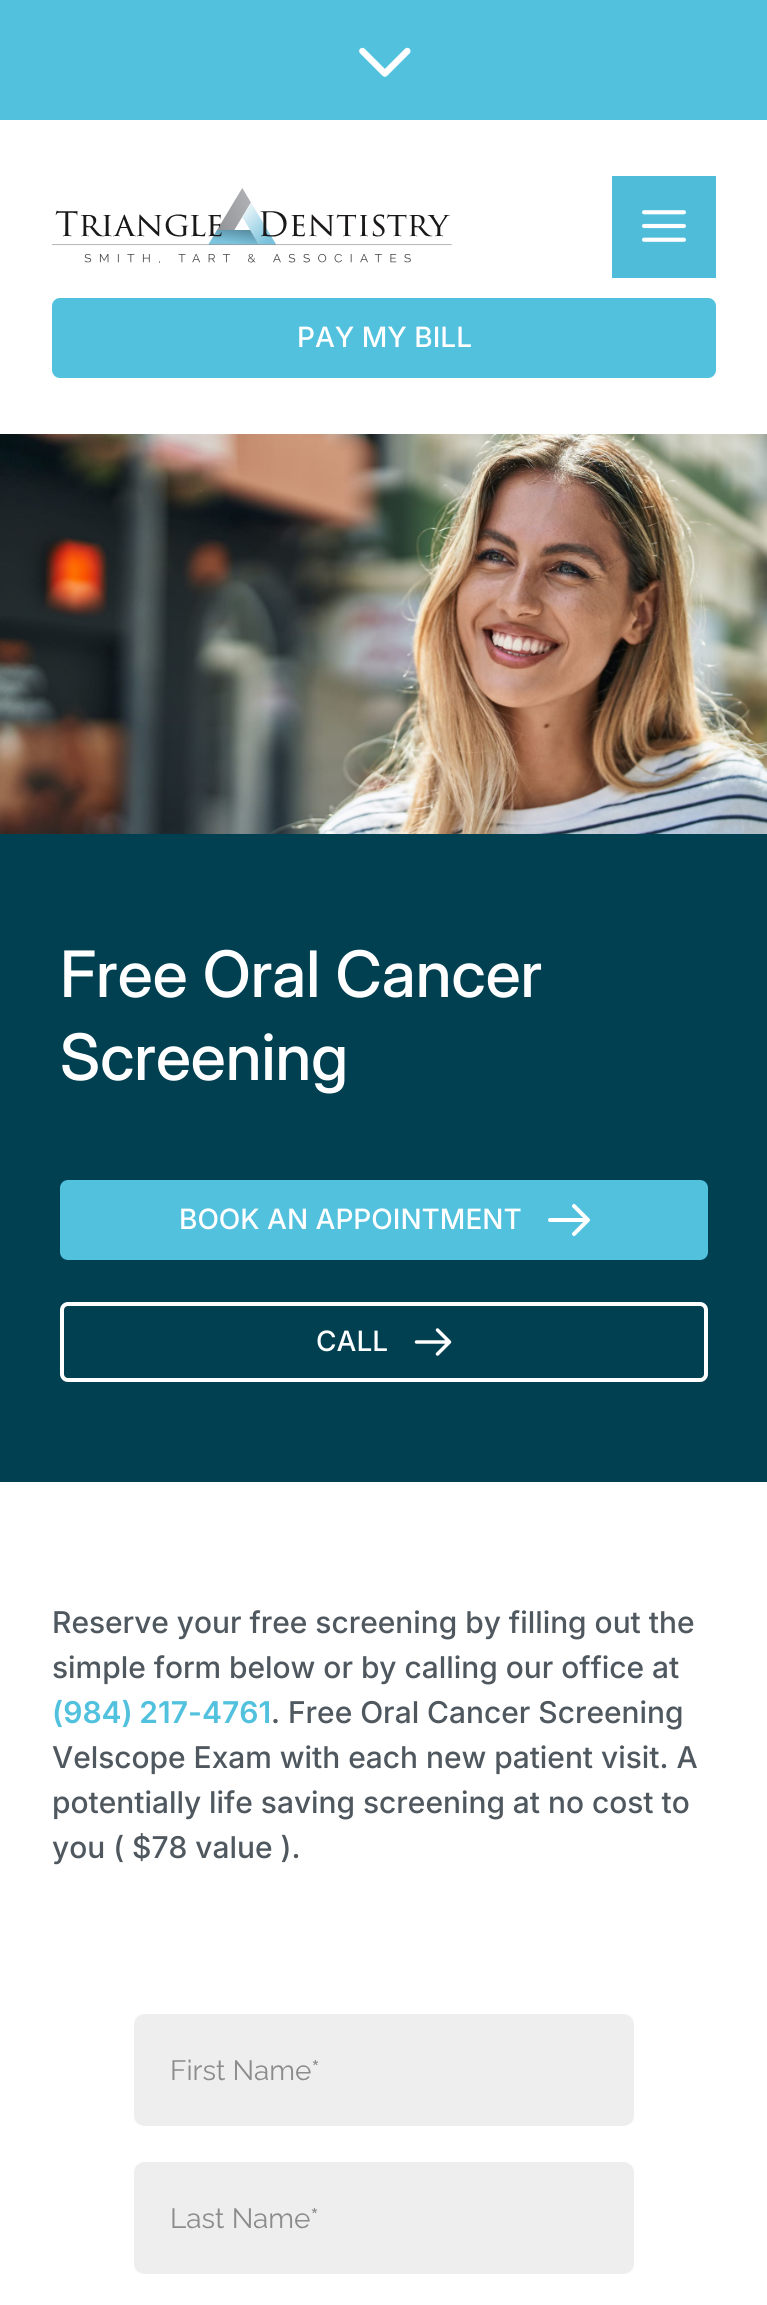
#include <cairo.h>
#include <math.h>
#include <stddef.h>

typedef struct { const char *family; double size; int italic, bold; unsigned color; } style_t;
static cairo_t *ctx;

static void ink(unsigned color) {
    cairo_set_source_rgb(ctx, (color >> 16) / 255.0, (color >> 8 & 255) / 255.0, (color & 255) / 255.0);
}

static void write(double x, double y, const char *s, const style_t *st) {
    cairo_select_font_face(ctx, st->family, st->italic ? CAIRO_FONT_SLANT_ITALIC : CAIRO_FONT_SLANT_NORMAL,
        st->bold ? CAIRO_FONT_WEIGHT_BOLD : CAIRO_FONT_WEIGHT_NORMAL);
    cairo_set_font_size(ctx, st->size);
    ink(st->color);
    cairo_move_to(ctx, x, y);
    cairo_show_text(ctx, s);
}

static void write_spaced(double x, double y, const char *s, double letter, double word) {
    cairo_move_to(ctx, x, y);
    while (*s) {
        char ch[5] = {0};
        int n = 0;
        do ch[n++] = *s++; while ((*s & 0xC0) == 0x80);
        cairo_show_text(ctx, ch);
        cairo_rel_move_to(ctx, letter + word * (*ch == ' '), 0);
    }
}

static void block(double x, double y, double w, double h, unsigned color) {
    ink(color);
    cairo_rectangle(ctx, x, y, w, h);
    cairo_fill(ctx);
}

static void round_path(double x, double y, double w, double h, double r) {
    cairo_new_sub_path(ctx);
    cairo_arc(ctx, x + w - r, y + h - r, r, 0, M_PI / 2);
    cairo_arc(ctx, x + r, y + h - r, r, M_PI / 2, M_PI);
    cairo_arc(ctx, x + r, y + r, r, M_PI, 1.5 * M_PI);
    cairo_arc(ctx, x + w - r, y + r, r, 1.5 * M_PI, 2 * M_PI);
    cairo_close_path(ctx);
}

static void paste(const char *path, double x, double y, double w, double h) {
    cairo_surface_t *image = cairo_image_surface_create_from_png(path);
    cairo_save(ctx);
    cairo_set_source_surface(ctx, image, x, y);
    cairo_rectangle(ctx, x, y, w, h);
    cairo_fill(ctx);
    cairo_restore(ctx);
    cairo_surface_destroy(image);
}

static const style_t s1 = {"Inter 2 Medium", 28, 0, 0, 0xffffff};
static const style_t s2 = {"Inter Medium", 64, 0, 0, 0xffffff};
static const style_t s3 = {"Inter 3 Medium", 30, 0, 0, 0x50585f};

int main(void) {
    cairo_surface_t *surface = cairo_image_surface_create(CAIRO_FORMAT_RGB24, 767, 2305);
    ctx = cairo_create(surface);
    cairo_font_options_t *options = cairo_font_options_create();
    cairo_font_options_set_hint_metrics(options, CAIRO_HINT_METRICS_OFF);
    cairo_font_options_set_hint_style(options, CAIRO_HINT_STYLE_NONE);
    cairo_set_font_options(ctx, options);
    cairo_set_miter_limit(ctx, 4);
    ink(0xffffff);
    cairo_paint(ctx);
    block(0, 0, 767, 120, 0x51c1de);
    paste("pic1.png", 359, 47, 52, 30);
    paste("pic2.png", 52, 188, 400, 76);
    block(612, 176, 104, 102, 0x4fbdda);
    paste("pic3.png", 642, 210, 44, 32);
    ink(0x51c1de);
    round_path(54, 300, 660, 76, 6);
    cairo_fill_preserve(ctx);
    cairo_set_line_width(ctx, 4);
    cairo_stroke(ctx);
    write(297, 347, "PAY MY BILL", &s1);
    block(0, 834, 767, 648, 0x014051);
    paste("pic4.png", 0, 434, 767, 400);
    write(60, 997, "Free Oral Cancer", &s2);
    write(60, 1080, "Screening", &s2);
    ink(0x51c1de);
    round_path(62, 1182, 644, 76, 6);
    cairo_fill_preserve(ctx);
    cairo_stroke(ctx);
    write(179, 1229, "BOOK AN APPOINTMENT", &s1);
    cairo_new_path(ctx);
    cairo_move_to(ctx, 550, 1220);
    cairo_line_to(ctx, 587.5, 1220);
    cairo_move_to(ctx, 588, 1220);
    cairo_line_to(ctx, 574, 1206);
    cairo_move_to(ctx, 588, 1220);
    cairo_line_to(ctx, 574, 1234);
    cairo_set_line_cap(ctx, CAIRO_LINE_CAP_ROUND);
    cairo_stroke(ctx);
    round_path(62, 1304, 644, 76, 6);
    cairo_set_line_cap(ctx, CAIRO_LINE_CAP_BUTT);
    cairo_stroke(ctx);
    write(316, 1351, "CALL", &s1);
    cairo_new_path(ctx);
    cairo_move_to(ctx, 416.5, 1342);
    cairo_line_to(ctx, 449, 1342);
    cairo_move_to(ctx, 449.5, 1342);
    cairo_line_to(ctx, 437.5, 1330);
    cairo_move_to(ctx, 449.5, 1342);
    cairo_line_to(ctx, 437.5, 1354);
    cairo_set_line_width(ctx, 3.5);
    cairo_set_line_cap(ctx, CAIRO_LINE_CAP_ROUND);
    cairo_stroke(ctx);
    write(52, 1633, "Reserve your free screening by filling out the", &s3);
    write(52, 1678, "simple form below or by calling our office at", &s3);
    cairo_select_font_face(ctx, "Inter SemiBold", CAIRO_FONT_SLANT_NORMAL, CAIRO_FONT_WEIGHT_NORMAL);
    ink(0x51c1de);
    write_spaced(52, 1723, "(984) 217-4761", 0, -1);
    write(271, 1723, ". Free Oral Cancer Screening", &s3);
    write(52, 1768, "Velscope Exam with each new patient visit. A", &s3);
    write(52, 1813, "potentially life saving screening at no cost to", &s3);
    write(52, 1858, "you ( $78 value ).", &s3);
    paste("pic5.png", 134, 2014, 500, 260);
    cairo_surface_write_to_png(surface, "screenshot.png");
    cairo_font_options_destroy(options);
    cairo_destroy(ctx);
    cairo_surface_destroy(surface);
    return 0;
}
